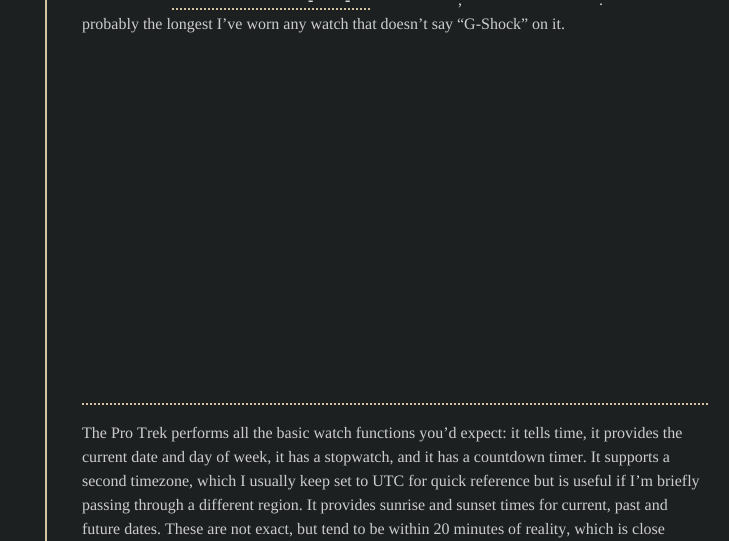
#include <cairo.h>
#include <math.h>
#include <stddef.h>

typedef struct { const char *family; double size; int italic, bold; unsigned color; } style_t;
static cairo_t *ctx;

static void ink(unsigned color) {
    cairo_set_source_rgb(ctx, (color >> 16) / 255.0, (color >> 8 & 255) / 255.0, (color & 255) / 255.0);
}

static void write(double x, double y, const char *s, const style_t *st) {
    cairo_select_font_face(ctx, st->family, st->italic ? CAIRO_FONT_SLANT_ITALIC : CAIRO_FONT_SLANT_NORMAL,
        st->bold ? CAIRO_FONT_WEIGHT_BOLD : CAIRO_FONT_WEIGHT_NORMAL);
    cairo_set_font_size(ctx, st->size);
    ink(st->color);
    cairo_move_to(ctx, x, y);
    cairo_show_text(ctx, s);
}

static void block(double x, double y, double w, double h, unsigned color) {
    ink(color);
    cairo_rectangle(ctx, x, y, w, h);
    cairo_fill(ctx);
}

static const style_t s1 = {"Liberation Serif", 16, 0, 0, 0xffffff};
static const style_t s2 = {"Liberation Serif", 16, 0, 0, 0xcccccc};

int main(void) {
    cairo_surface_t *surface = cairo_image_surface_create(CAIRO_FORMAT_RGB24, 729, 541);
    ctx = cairo_create(surface);
    cairo_font_options_t *options = cairo_font_options_create();
    cairo_font_options_set_hint_metrics(options, CAIRO_HINT_METRICS_OFF);
    cairo_font_options_set_hint_style(options, CAIRO_HINT_STYLE_NONE);
    cairo_set_font_options(ctx, options);
    cairo_set_miter_limit(ctx, 4);
    ink(0x1d2021);
    cairo_paint(ctx);
    block(45, 0, 2, 541, 0xd5c4a1);
    write(308, 5, "-", &s1);
    cairo_new_path(ctx);
    cairo_move_to(ctx, 172, 9);
    cairo_line_to(ctx, 370, 9);
    ink(0xd5c4a1);
    cairo_set_dash(ctx, (double[]){2, 2}, 2, 0);
    cairo_stroke(ctx);
    write(345, 5, "-", &s1);
    write(458, 5, ",", &s2);
    write(599, 5, ".", &s2);
    write(82, 29, "probably the longest I’ve worn any watch that doesn’t say “G-Shock” on it.", &s2);
    cairo_new_path(ctx);
    cairo_move_to(ctx, 82, 404);
    cairo_line_to(ctx, 709, 404);
    ink(0xd5c4a1);
    cairo_stroke(ctx);
    write(82, 438, "The Pro Trek performs all the basic watch functions you’d expect: it tells time, it provides the", &s2);
    write(82, 462, "current date and day of week, it has a stopwatch, and it has a countdown timer. It supports a", &s2);
    write(82, 486, "second timezone, which I usually keep set to UTC for quick reference but is useful if I’m briefly", &s2);
    write(82, 510, "passing through a different region. It provides sunrise and sunset times for current, past and", &s2);
    write(82, 534, "future dates. These are not exact, but tend to be within 20 minutes of reality, which is close", &s2);
    cairo_surface_write_to_png(surface, "screenshot.png");
    cairo_font_options_destroy(options);
    cairo_destroy(ctx);
    cairo_surface_destroy(surface);
    return 0;
}
